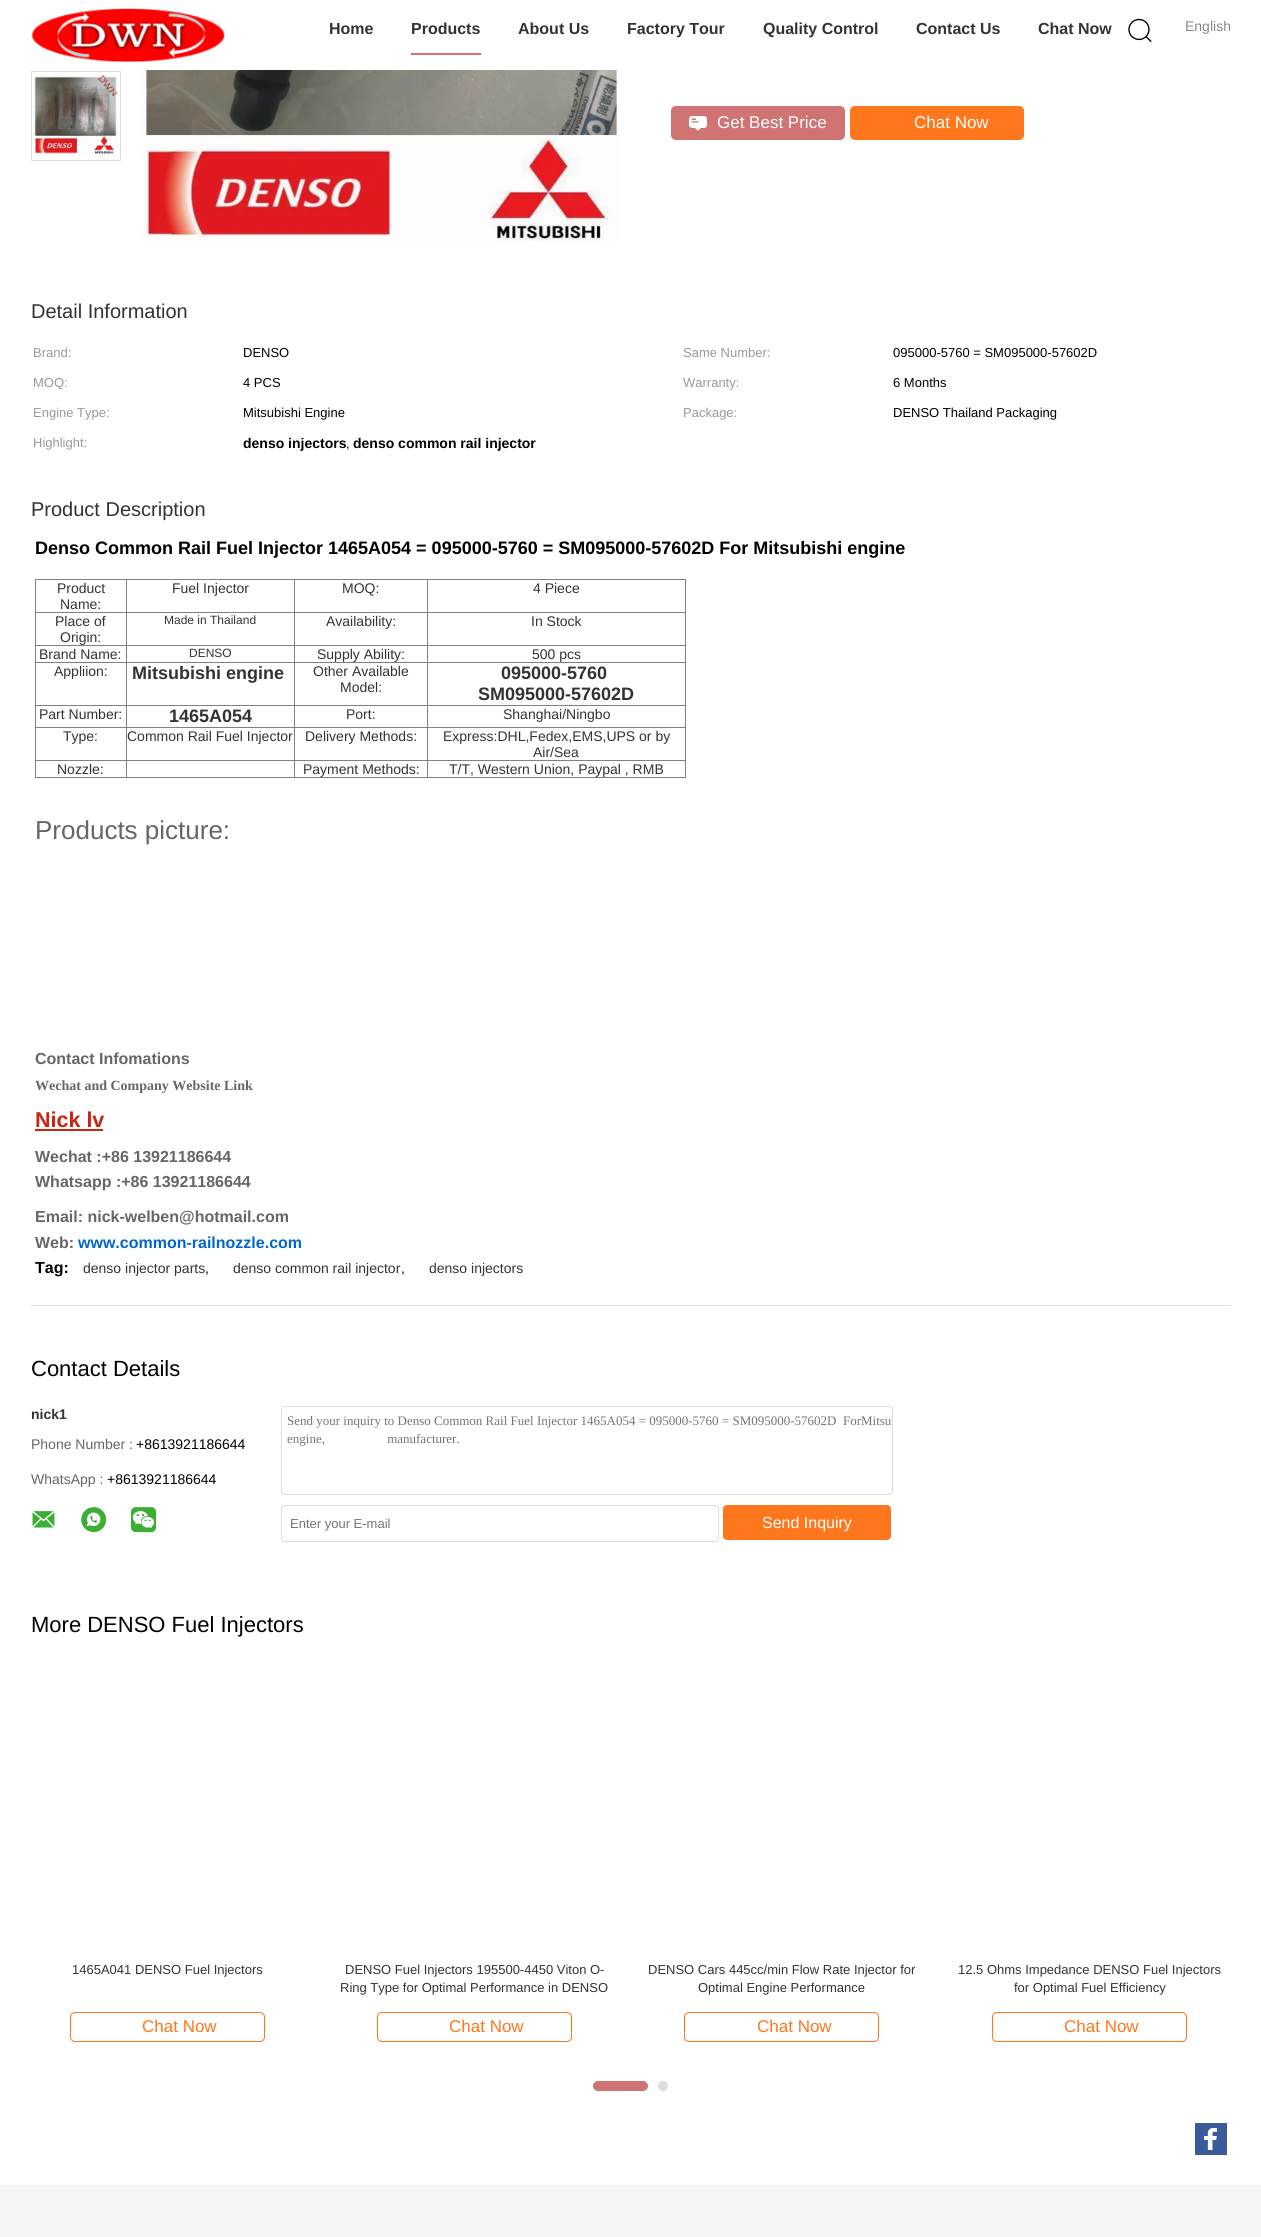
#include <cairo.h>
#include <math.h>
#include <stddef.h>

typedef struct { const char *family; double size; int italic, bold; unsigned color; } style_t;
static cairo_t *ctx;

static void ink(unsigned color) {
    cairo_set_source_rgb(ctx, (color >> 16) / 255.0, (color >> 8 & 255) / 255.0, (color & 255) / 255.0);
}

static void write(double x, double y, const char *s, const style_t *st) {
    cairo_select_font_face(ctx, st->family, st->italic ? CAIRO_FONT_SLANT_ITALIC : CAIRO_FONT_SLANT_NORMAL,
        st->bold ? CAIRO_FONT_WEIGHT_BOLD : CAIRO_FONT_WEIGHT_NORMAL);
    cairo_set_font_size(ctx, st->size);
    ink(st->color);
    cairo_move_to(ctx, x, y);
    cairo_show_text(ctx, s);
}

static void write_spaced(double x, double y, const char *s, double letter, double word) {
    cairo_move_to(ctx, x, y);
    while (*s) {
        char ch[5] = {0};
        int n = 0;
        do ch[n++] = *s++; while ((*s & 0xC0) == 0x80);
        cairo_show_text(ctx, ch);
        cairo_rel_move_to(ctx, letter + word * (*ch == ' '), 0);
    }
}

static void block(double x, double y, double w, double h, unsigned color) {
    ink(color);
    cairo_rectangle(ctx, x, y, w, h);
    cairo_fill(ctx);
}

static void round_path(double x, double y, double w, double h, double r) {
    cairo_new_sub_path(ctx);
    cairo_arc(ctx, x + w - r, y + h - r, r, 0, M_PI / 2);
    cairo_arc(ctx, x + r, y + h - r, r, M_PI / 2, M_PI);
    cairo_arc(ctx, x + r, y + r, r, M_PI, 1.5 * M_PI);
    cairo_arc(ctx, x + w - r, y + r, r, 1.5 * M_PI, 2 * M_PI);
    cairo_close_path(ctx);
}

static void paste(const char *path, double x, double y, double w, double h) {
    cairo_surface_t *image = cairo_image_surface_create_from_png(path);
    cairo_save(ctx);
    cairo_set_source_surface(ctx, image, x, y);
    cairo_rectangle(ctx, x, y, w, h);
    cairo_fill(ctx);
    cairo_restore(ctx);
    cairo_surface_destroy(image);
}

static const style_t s1 = {"Liberation Sans", 16, 0, 1, 0x333333};
static const style_t s2 = {"Liberation Sans", 14, 0, 0, 0x888888};
static const style_t s3 = {"Liberation Sans", 17, 0, 0, 0xffffff};
static const style_t s4 = {"Liberation Sans", 20, 0, 0, 0x333333};
static const style_t s5 = {"Liberation Sans", 13, 0, 0, 0x999999};
static const style_t s6 = {"Liberation Sans", 13, 0, 0, 0x000000};
static const style_t s7 = {"Liberation Sans", 14, 0, 1, 0x000000};
static const style_t s8 = {"Liberation Sans", 18, 0, 1, 0x000000};
static const style_t s9 = {"Liberation Sans", 14, 0, 0, 0x333333};
static const style_t s10 = {"Liberation Sans", 12, 0, 0, 0x333333};
static const style_t s11 = {"Liberation Sans", 18, 0, 1, 0x333333};
static const style_t s12 = {"Liberation Sans", 26, 0, 0, 0x666666};
static const style_t s13 = {"Liberation Sans", 16, 0, 1, 0x666666};
static const style_t s14 = {"Liberation Serif", 14, 0, 1, 0x666666};
static const style_t s15 = {"Liberation Sans", 21.5, 0, 1, 0xc82613};
static const style_t s16 = {"Liberation Sans", 16, 0, 1, 0x0066cc};
static const style_t s17 = {"Liberation Sans", 16, 0, 1, 0x000000};
static const style_t s18 = {"Liberation Sans", 14, 0, 0, 0x000000};
static const style_t s19 = {"Liberation Sans", 22, 0, 0, 0x000000};
static const style_t s20 = {"Liberation Sans", 14, 0, 1, 0x333333};
static const style_t s21 = {"Liberation Sans", 14, 0, 0, 0x666666};
static const style_t s22 = {"Liberation Serif", 13, 0, 0, 0x757575};
static const style_t s23 = {"Liberation Sans", 13, 0, 0, 0x757575};
static const style_t s24 = {"Liberation Sans", 16, 0, 0, 0xffffff};
static const style_t s25 = {"Liberation Sans", 13, 0, 0, 0x333333};
static const style_t s26 = {"Liberation Sans", 17, 0, 0, 0xff771c};

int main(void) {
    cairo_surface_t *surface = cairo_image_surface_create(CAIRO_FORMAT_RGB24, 1261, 2237);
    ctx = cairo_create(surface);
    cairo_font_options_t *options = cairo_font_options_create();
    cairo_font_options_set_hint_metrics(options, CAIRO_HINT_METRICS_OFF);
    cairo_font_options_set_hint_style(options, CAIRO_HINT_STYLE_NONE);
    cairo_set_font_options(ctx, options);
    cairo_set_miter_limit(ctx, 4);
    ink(0xffffff);
    cairo_paint(ctx);
    paste("pic1.png", 31, 8, 194, 54);
    write(329, 34, "Home", &s1);
    block(411, 53, 70, 2, 0xd17474);
    write(411, 34, "Products", &s1);
    write(518, 34, "About Us", &s1);
    write(627, 34, "Factory Tour", &s1);
    write(763, 34, "Quality Control", &s1);
    write(916, 34, "Contact Us", &s1);
    write(1038, 34, "Chat Now", &s1);
    paste("pic2.png", 1128, 18, 24, 25);
    write(1185, 31, "English", &s2);
    cairo_rectangle(ctx, 31.5, 71.5, 89, 89);
    ink(0xdddddd);
    cairo_set_line_width(ctx, 1);
    cairo_stroke(ctx);
    paste("pic3.png", 34, 75, 84, 80);
    paste("pic4.png", 143, 70, 477, 173);
    ink(0xd07473);
    round_path(671.5, 106.5, 173, 33, 4.5);
    cairo_fill_preserve(ctx);
    cairo_stroke(ctx);
    paste("pic5.png", 689, 116, 18, 15);
    write(717, 128, "Get Best Price", &s3);
    ink(0xff771c);
    round_path(850.5, 106.5, 173, 33, 4.5);
    cairo_fill_preserve(ctx);
    cairo_stroke(ctx);
    write(914, 128, "Chat Now", &s3);
    block(31, 1305, 1200, 1, 0xdddddd);
    write(31, 318, "Detail Information", &s4);
    write(33, 357, "Brand:", &s5);
    write(243, 357, "DENSO", &s6);
    write(683, 357, "Same Number:", &s5);
    write(893, 357, "095000-5760 = SM095000-57602D", &s6);
    write(33, 387, "MOQ:", &s5);
    write(243, 387, "4 PCS", &s6);
    write(683, 387, "Warranty:", &s5);
    write(893, 387, "6 Months", &s6);
    write(33, 417, "Engine Type:", &s5);
    write(243, 417, "Mitsubishi Engine", &s6);
    write(683, 417, "Package:", &s5);
    write(893, 417, "DENSO Thailand Packaging", &s6);
    write(33, 447, "Highlight:", &s5);
    write(243, 448, "denso injectors", &s7);
    write(346, 448, ",", &s6);
    write(353, 448, "denso common rail injector", &s7);
    write(31, 516, "Product Description", &s4);
    write(35, 554, "Denso Common Rail Fuel Injector 1465A054 = 095000-5760 = SM095000-57602D For Mitsubishi engine", &s8);
    block(35, 579, 651, 1, 0x808080);
    block(685, 579, 1, 199, 0x808080);
    block(35, 777, 651, 1, 0x808080);
    block(35, 579, 1, 199, 0x808080);
    write(57, 593, "Product", &s9);
    write(60, 609, "Name:", &s9);
    block(427, 612, 259, 1, 0x808080);
    block(427, 645, 259, 1, 0x808080);
    block(427, 662, 259, 1, 0x808080);
    block(427, 705, 259, 1, 0x808080);
    block(427, 727, 259, 1, 0x808080);
    block(427, 760, 259, 1, 0x808080);
    block(427, 760, 1, 18, 0x808080);
    block(294, 760, 134, 1, 0x808080);
    block(427, 727, 1, 34, 0x808080);
    block(294, 727, 134, 1, 0x808080);
    block(427, 705, 1, 23, 0x808080);
    block(294, 705, 134, 1, 0x808080);
    block(427, 662, 1, 44, 0x808080);
    block(294, 662, 134, 1, 0x808080);
    block(427, 645, 1, 18, 0x808080);
    block(294, 645, 134, 1, 0x808080);
    block(427, 612, 1, 34, 0x808080);
    block(294, 612, 134, 1, 0x808080);
    block(294, 760, 1, 18, 0x808080);
    block(126, 760, 169, 1, 0x808080);
    block(294, 727, 1, 34, 0x808080);
    block(126, 727, 169, 1, 0x808080);
    block(294, 705, 1, 23, 0x808080);
    block(126, 705, 169, 1, 0x808080);
    block(294, 662, 1, 44, 0x808080);
    block(126, 662, 169, 1, 0x808080);
    block(294, 645, 1, 18, 0x808080);
    block(126, 645, 169, 1, 0x808080);
    block(294, 612, 1, 34, 0x808080);
    block(126, 612, 169, 1, 0x808080);
    block(126, 760, 1, 18, 0x808080);
    block(35, 760, 92, 1, 0x808080);
    block(126, 727, 1, 34, 0x808080);
    block(35, 727, 92, 1, 0x808080);
    block(126, 705, 1, 23, 0x808080);
    block(35, 705, 92, 1, 0x808080);
    block(126, 662, 1, 44, 0x808080);
    block(35, 662, 92, 1, 0x808080);
    block(126, 645, 1, 18, 0x808080);
    block(35, 645, 92, 1, 0x808080);
    block(126, 612, 1, 34, 0x808080);
    block(35, 612, 92, 1, 0x808080);
    block(126, 579, 1, 34, 0x808080);
    write(172, 593, "Fuel Injector", &s9);
    block(294, 579, 1, 34, 0x808080);
    write(342, 593, "MOQ:", &s9);
    block(427, 579, 1, 34, 0x808080);
    write(533, 593, "4 Piece", &s9);
    write(55, 626, "Place of", &s9);
    write(60, 642, "Origin:", &s9);
    write(164, 624, "Made in Thailand", &s10);
    write(326, 626, "Availability:", &s9);
    write(531, 626, "In Stock", &s9);
    write(39, 659, "Brand Name:", &s9);
    write(189, 657, "DENSO", &s10);
    write(317, 659, "Supply Ability:", &s9);
    write(532, 659, "500 pcs", &s9);
    write(54, 676, "Appliion:", &s9);
    write(132, 679, "Mitsubishi engine", &s11);
    write(313, 676, "Other Available", &s9);
    write(340, 692, "Model:", &s9);
    write(501, 679, "095000-5760", &s11);
    write(478, 700, "SM095000-57602D", &s11);
    write(39, 719, "Part Number:", &s9);
    write(169, 722, "1465A054", &s11);
    write(346, 719, "Port:", &s9);
    write(503, 719, "Shanghai/Ningbo", &s9);
    write(63, 741, "Type:", &s9);
    write(127, 741, "Common Rail Fuel Injector", &s9);
    write(305, 741, "Delivery Methods:", &s9);
    write(443, 741, "Express:DHL,Fedex,EMS,UPS or by", &s9);
    write(533, 757, "Air/Sea", &s9);
    write(57, 774, "Nozzle:", &s9);
    write(303, 774, "Payment Methods:", &s9);
    write(449, 774, "T/T, Western Union, Paypal , RMB", &s9);
    write(35, 839, "Products picture:", &s12);
    write(35, 1064, "Contact Infomations", &s13);
    write(35, 1090, "Wechat and Company Website Link", &s14);
    write(35, 1127, "Nick lv", &s15);
    block(35, 1129, 68, 2, 0xc82613);
    write(35, 1162, "Wechat :+86 13921186644", &s13);
    write(35, 1187, "Whatsapp :+86 13921186644", &s13);
    write(35, 1222, "Email: nick-welben@hotmail.com", &s13);
    write(35, 1248, "Web:", &s13);
    write(78, 1248, "www.common-railnozzle.com", &s16);
    write(35, 1273, "Tag:", &s17);
    write(83, 1273, "denso injector parts", &s9);
    write(205, 1273, ",", &s18);
    write(233, 1273, "denso common rail injector", &s9);
    write(401, 1273, ",", &s18);
    write(429, 1273, "denso injectors", &s9);
    write(31, 1376, "Contact Details", &s19);
    write(31, 1419, "nick1", &s20);
    write(31, 1449, "Phone Number :", &s21);
    write(136, 1449, "+8613921186644", &s18);
    write(31, 1484, "WhatsApp :", &s21);
    write(107, 1484, "+8613921186644", &s18);
    paste("pic6.png", 32, 1511, 23, 17);
    paste("pic7.png", 81, 1507, 26, 26);
    paste("pic8.png", 131, 1507, 25, 26);
    round_path(281.5, 1406.5, 611, 88, 3.5);
    ink(0xdddddd);
    cairo_stroke(ctx);
    write(287, 1425, "Send your inquiry to Denso Common Rail Fuel Injector 1465A054 = 095000-5760 = SM095000-57602D  ForMitsu", &s22);
    write_spaced(287, 1443, "engine, manufacturer.", 0, 59);
    round_path(281.5, 1505.5, 437, 36, 3.5);
    ink(0xdddddd);
    cairo_stroke(ctx);
    write(290, 1528, "Enter your E-mail", &s23);
    ink(0xff771c);
    round_path(723, 1505, 168, 35, 4);
    cairo_fill(ctx);
    write(762, 1528, "Send Inquiry", &s24);
    write(31, 1632, "More DENSO Fuel Injectors", &s19);
    write(72, 1974, "1465A041 DENSO Fuel Injectors", &s25);
    round_path(70.5, 2012.5, 194, 29, 4.5);
    ink(0xff771c);
    cairo_stroke(ctx);
    write(142, 2032, "Chat Now", &s26);
    write(345, 1974, "DENSO Fuel Injectors 195500-4450 Viton O-", &s25);
    write(340, 1992, "Ring Type for Optimal Performance in DENSO", &s25);
    round_path(377.5, 2012.5, 194, 29, 4.5);
    ink(0xff771c);
    cairo_stroke(ctx);
    write(449, 2032, "Chat Now", &s26);
    write(648, 1974, "DENSO Cars 445cc/min Flow Rate Injector for", &s25);
    write(698, 1992, "Optimal Engine Performance", &s25);
    round_path(684.5, 2012.5, 194, 29, 4.5);
    ink(0xff771c);
    cairo_stroke(ctx);
    write(757, 2032, "Chat Now", &s26);
    write(958, 1974, "12.5 Ohms Impedance DENSO Fuel Injectors", &s25);
    write(1014, 1992, "for Optimal Fuel Efficiency", &s25);
    round_path(992.5, 2012.5, 194, 29, 4.5);
    ink(0xff771c);
    cairo_stroke(ctx);
    write(1064, 2032, "Chat Now", &s26);
    ink(0xd07473);
    round_path(593, 2081, 55, 10, 5);
    cairo_fill(ctx);
    ink(0xdddddd);
    cairo_arc(ctx, 663, 2086, 5, 0, 2 * M_PI);
    cairo_fill(ctx);
    paste("pic9.png", 1195, 2123, 32, 32);
    block(0, 2185, 1261, 52, 0xf5f5f5);
    cairo_surface_write_to_png(surface, "screenshot.png");
    cairo_font_options_destroy(options);
    cairo_destroy(ctx);
    cairo_surface_destroy(surface);
    return 0;
}
